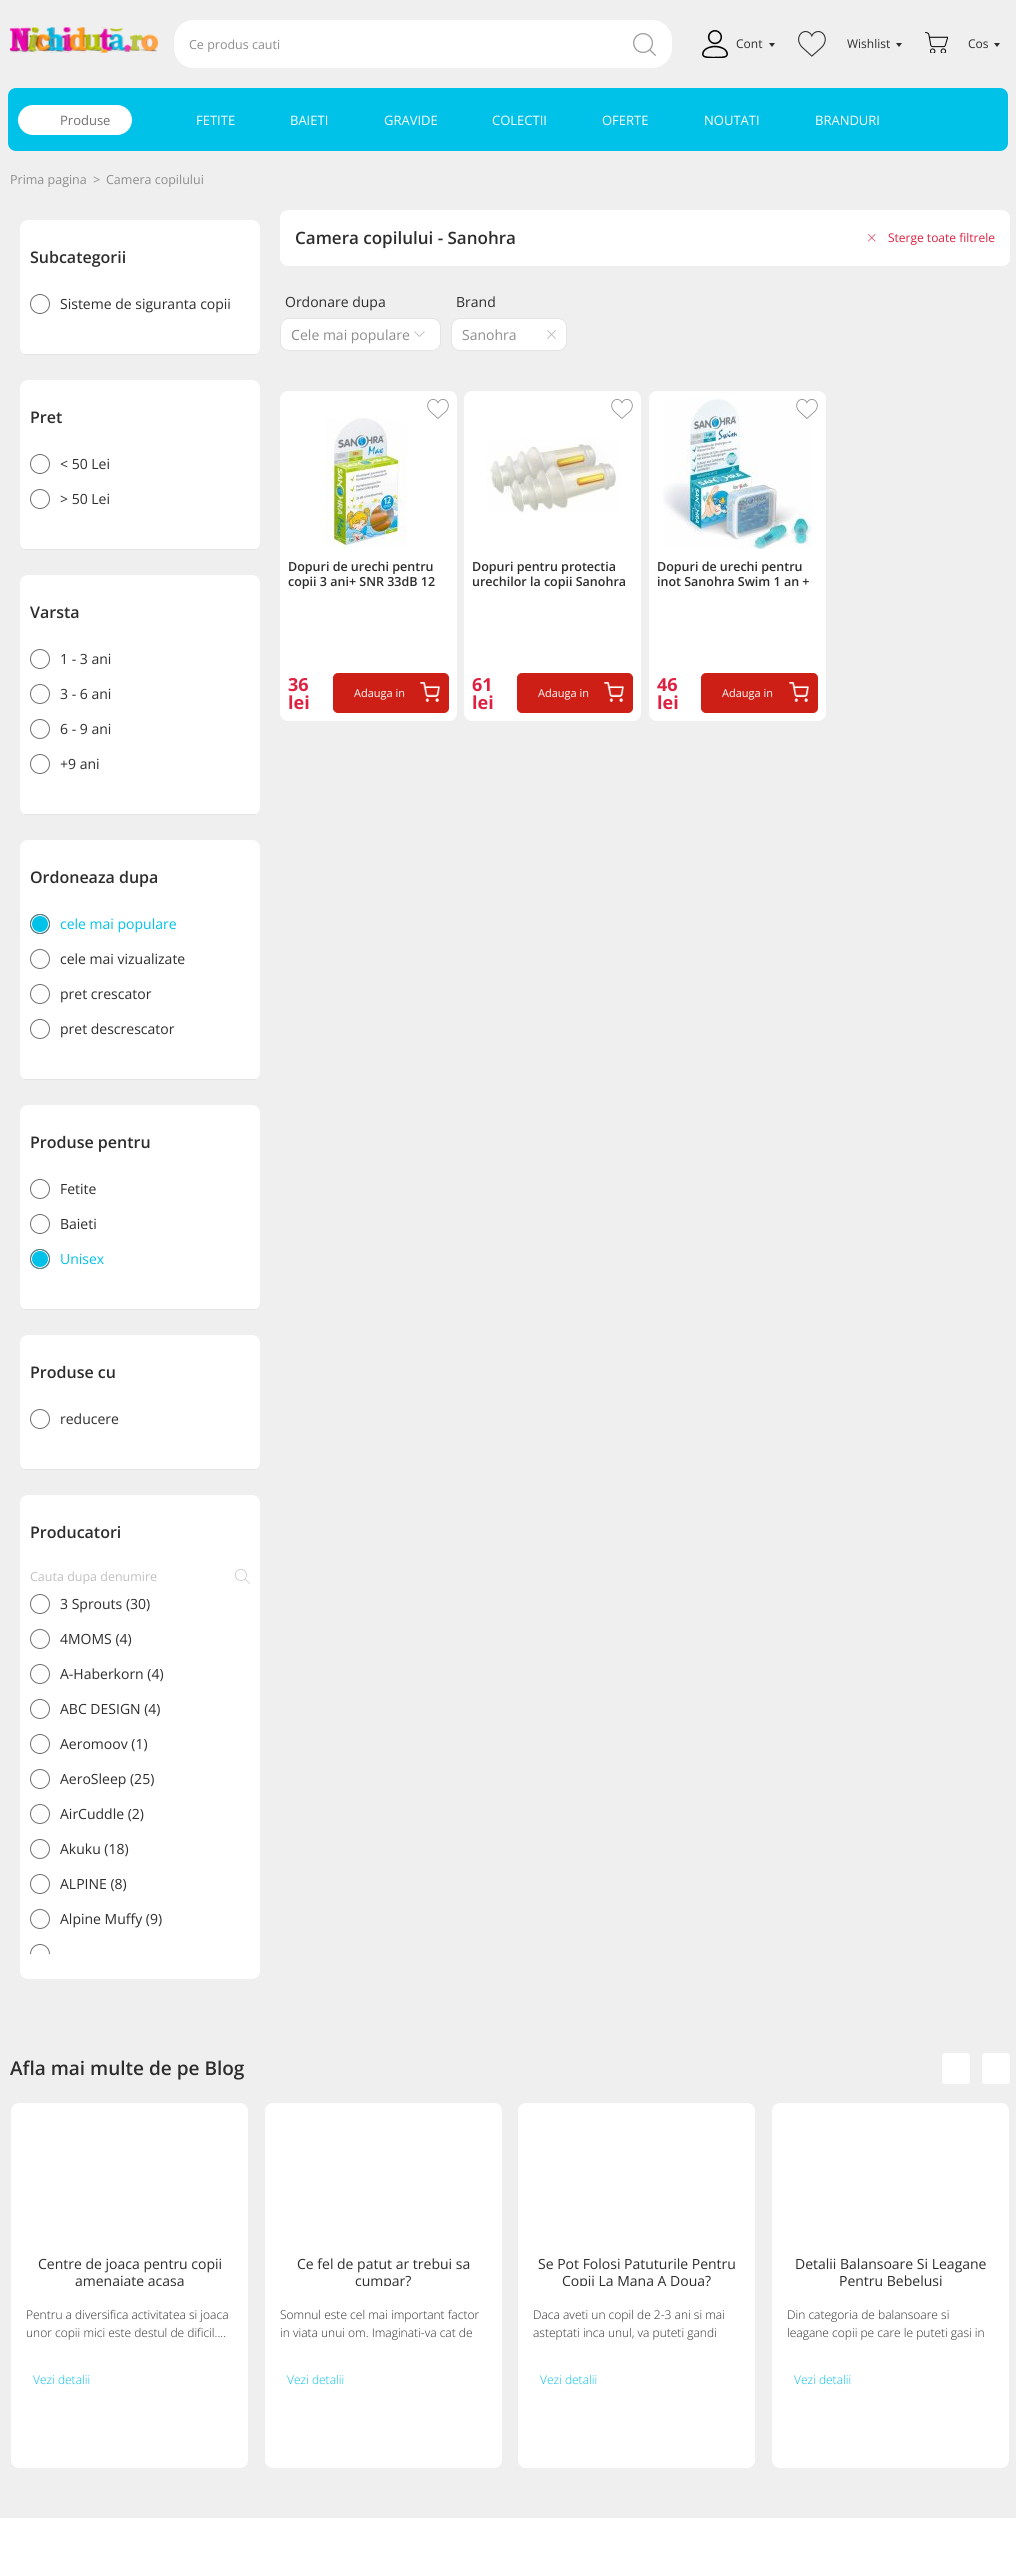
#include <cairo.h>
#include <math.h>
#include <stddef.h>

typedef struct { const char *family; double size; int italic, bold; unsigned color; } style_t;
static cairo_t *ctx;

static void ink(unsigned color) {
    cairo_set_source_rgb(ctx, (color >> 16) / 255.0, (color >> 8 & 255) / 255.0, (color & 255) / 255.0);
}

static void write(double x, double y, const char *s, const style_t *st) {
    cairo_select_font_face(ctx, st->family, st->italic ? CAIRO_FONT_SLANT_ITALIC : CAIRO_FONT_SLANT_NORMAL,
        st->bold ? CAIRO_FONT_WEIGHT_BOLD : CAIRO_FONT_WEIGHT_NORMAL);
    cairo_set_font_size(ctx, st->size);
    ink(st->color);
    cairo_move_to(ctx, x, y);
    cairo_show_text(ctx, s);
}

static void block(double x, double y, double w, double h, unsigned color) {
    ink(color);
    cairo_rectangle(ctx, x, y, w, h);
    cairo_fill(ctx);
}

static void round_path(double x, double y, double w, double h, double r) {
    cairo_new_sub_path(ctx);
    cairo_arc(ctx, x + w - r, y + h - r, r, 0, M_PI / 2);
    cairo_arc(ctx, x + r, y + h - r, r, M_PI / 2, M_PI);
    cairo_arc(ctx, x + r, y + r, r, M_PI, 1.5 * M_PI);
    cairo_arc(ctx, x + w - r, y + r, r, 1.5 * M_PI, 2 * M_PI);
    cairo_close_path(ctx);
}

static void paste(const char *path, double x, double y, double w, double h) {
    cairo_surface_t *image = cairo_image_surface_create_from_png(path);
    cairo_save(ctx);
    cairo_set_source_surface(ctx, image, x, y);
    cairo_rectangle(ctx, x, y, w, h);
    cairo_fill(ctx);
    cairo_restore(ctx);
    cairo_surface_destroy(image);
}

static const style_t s1 = {"Open Sans", 12.5, 0, 0, 0x8d8d8d};
static const style_t s2 = {"Open Sans", 12, 0, 0, 0x2d2d2d};
static const style_t s3 = {"Open Sans", 13, 0, 0, 0x707070};
static const style_t s4 = {"Open Sans", 13, 0, 0, 0xffffff};
static const style_t s5 = {"Open Sans SemiBold", 16, 0, 0, 0x2d2d2d};
static const style_t s6 = {"Open Sans", 14, 0, 0, 0x2d2d2d};
static const style_t s7 = {"Open Sans", 14, 0, 0, 0x00c1e8};
static const style_t s8 = {"Open Sans", 12.5, 0, 0, 0xc1c0c0};
static const style_t s9 = {"Open Sans SemiBold", 17, 0, 0, 0x2d2d2d};
static const style_t s10 = {"Open Sans", 12, 0, 0, 0xde2041};
static const style_t s11 = {"Noto Sans", 14, 0, 0, 0x8d8d8d};
static const style_t s12 = {"Open Sans", 14, 0, 0, 0x8d8d8d};
static const style_t s13 = {"Open Sans SemiBold", 12.5, 0, 0, 0x2d2d2d};
static const style_t s14 = {"Open Sans", 18, 0, 1, 0xde2041};
static const style_t s15 = {"Open Sans", 11, 0, 0, 0xffffff};
static const style_t s16 = {"Open Sans SemiBold", 19, 0, 0, 0x2d2d2d};
static const style_t s17 = {"Open Sans Light", 12, 0, 0, 0x2d2d2d};
static const style_t s18 = {"Open Sans Light", 12, 0, 0, 0x00c1e8};

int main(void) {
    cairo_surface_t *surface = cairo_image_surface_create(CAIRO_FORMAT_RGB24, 1016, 2560);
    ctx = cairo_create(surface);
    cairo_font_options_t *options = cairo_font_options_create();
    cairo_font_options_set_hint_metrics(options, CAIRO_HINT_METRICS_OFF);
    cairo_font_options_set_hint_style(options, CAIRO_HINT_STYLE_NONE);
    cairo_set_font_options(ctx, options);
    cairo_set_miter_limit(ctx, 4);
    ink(0xefefef);
    cairo_paint(ctx);
    paste("pic1.png", 10, 27, 148, 26);
    ink(0xffffff);
    round_path(174, 20, 498, 48, 20);
    cairo_fill(ctx);
    write(189, 49, "Ce produs cauti", &s1);
    paste("pic2.png", 633, 33, 23, 23);
    paste("pic3.png", 702, 30, 26, 28);
    write(736, 48, "Cont", &s2);
    cairo_new_path(ctx);
    cairo_move_to(ctx, 772, 47);
    cairo_line_to(ctx, 769, 43);
    cairo_line_to(ctx, 775, 43);
    cairo_close_path(ctx);
    cairo_fill(ctx);
    paste("pic4.png", 798, 31, 28, 26);
    write(847, 48, "Wishlist", &s2);
    cairo_new_path(ctx);
    cairo_move_to(ctx, 899, 47);
    cairo_line_to(ctx, 896, 43);
    cairo_line_to(ctx, 902, 43);
    cairo_close_path(ctx);
    cairo_fill(ctx);
    paste("pic5.png", 925, 32, 23, 21);
    write(968, 48, "Cos", &s2);
    cairo_new_path(ctx);
    cairo_move_to(ctx, 997, 47);
    cairo_line_to(ctx, 994, 43);
    cairo_line_to(ctx, 1000, 43);
    cairo_close_path(ctx);
    cairo_fill(ctx);
    ink(0x00c1e8);
    round_path(8, 88, 1000, 63, 8);
    cairo_fill(ctx);
    ink(0xffffff);
    round_path(18, 105, 114, 30, 15);
    cairo_fill(ctx);
    write(60, 125, "Produse", &s3);
    write(196, 125, "FETITE", &s4);
    write(290, 125, "BAIETI", &s4);
    write(384, 125, "GRAVIDE", &s4);
    write(492, 125, "COLECTII", &s4);
    write(602, 125, "OFERTE", &s4);
    write(704, 125, "NOUTATI", &s4);
    write(815, 125, "BRANDURI", &s4);
    write(10, 184, "Prima pagina", &s1);
    write(93, 184, ">", &s1);
    write(106, 184, "Camera copilului", &s1);
    ink(0xffffff);
    round_path(20, 220, 240, 135, 8);
    cairo_fill(ctx);
    block(24, 354, 232, 1, 0xe4e4e4);
    write(30, 263, "Subcategorii", &s5);
    cairo_new_path(ctx);
    cairo_arc(ctx, 40, 304, 9.5, 0, 2 * M_PI);
    ink(0x707070);
    cairo_set_line_width(ctx, 1);
    cairo_stroke(ctx);
    write(60, 309, "Sisteme de siguranta copii", &s6);
    ink(0xffffff);
    round_path(20, 380, 240, 170, 8);
    cairo_fill(ctx);
    block(24, 549, 232, 1, 0xe4e4e4);
    write(30, 423, "Pret", &s5);
    cairo_new_path(ctx);
    cairo_arc(ctx, 40, 464, 9.5, 0, 2 * M_PI);
    ink(0x707070);
    cairo_stroke(ctx);
    write(60, 469, "< 50 Lei", &s6);
    cairo_new_path(ctx);
    cairo_arc(ctx, 40, 499, 9.5, 0, 2 * M_PI);
    ink(0x707070);
    cairo_stroke(ctx);
    write(60, 504, "> 50 Lei", &s6);
    ink(0xffffff);
    round_path(20, 575, 240, 240, 8);
    cairo_fill(ctx);
    block(24, 814, 232, 1, 0xe4e4e4);
    write(30, 618, "Varsta", &s5);
    cairo_new_path(ctx);
    cairo_arc(ctx, 40, 659, 9.5, 0, 2 * M_PI);
    ink(0x707070);
    cairo_stroke(ctx);
    write(60, 664, "1 - 3 ani", &s6);
    cairo_new_path(ctx);
    cairo_arc(ctx, 40, 694, 9.5, 0, 2 * M_PI);
    ink(0x707070);
    cairo_stroke(ctx);
    write(60, 699, "3 - 6 ani", &s6);
    cairo_new_path(ctx);
    cairo_arc(ctx, 40, 729, 9.5, 0, 2 * M_PI);
    ink(0x707070);
    cairo_stroke(ctx);
    write(60, 734, "6 - 9 ani", &s6);
    cairo_new_path(ctx);
    cairo_arc(ctx, 40, 764, 9.5, 0, 2 * M_PI);
    ink(0x707070);
    cairo_stroke(ctx);
    write(60, 769, "+9 ani", &s6);
    ink(0xffffff);
    round_path(20, 840, 240, 240, 8);
    cairo_fill(ctx);
    block(24, 1079, 232, 1, 0xe4e4e4);
    write(30, 883, "Ordoneaza dupa", &s5);
    ink(0x00c1e8);
    cairo_new_path(ctx);
    cairo_arc(ctx, 40, 924, 10, 0, 2 * M_PI);
    cairo_fill(ctx);
    cairo_arc(ctx, 40, 924, 8.5, 0, 2 * M_PI);
    ink(0xffffff);
    cairo_stroke(ctx);
    cairo_arc(ctx, 40, 924, 9.5, 0, 2 * M_PI);
    ink(0x707070);
    cairo_stroke(ctx);
    write(60, 929, "cele mai populare", &s7);
    cairo_new_path(ctx);
    cairo_arc(ctx, 40, 959, 9.5, 0, 2 * M_PI);
    ink(0x707070);
    cairo_stroke(ctx);
    write(60, 964, "cele mai vizualizate", &s6);
    cairo_new_path(ctx);
    cairo_arc(ctx, 40, 994, 9.5, 0, 2 * M_PI);
    ink(0x707070);
    cairo_stroke(ctx);
    write(60, 999, "pret crescator", &s6);
    cairo_new_path(ctx);
    cairo_arc(ctx, 40, 1029, 9.5, 0, 2 * M_PI);
    ink(0x707070);
    cairo_stroke(ctx);
    write(60, 1034, "pret descrescator", &s6);
    ink(0xffffff);
    round_path(20, 1105, 240, 205, 8);
    cairo_fill(ctx);
    block(24, 1309, 232, 1, 0xe4e4e4);
    write(30, 1148, "Produse pentru", &s5);
    cairo_new_path(ctx);
    cairo_arc(ctx, 40, 1189, 9.5, 0, 2 * M_PI);
    ink(0x707070);
    cairo_stroke(ctx);
    write(60, 1194, "Fetite", &s6);
    cairo_new_path(ctx);
    cairo_arc(ctx, 40, 1224, 9.5, 0, 2 * M_PI);
    ink(0x707070);
    cairo_stroke(ctx);
    write(60, 1229, "Baieti", &s6);
    ink(0x00c1e8);
    cairo_new_path(ctx);
    cairo_arc(ctx, 40, 1259, 10, 0, 2 * M_PI);
    cairo_fill(ctx);
    cairo_arc(ctx, 40, 1259, 8.5, 0, 2 * M_PI);
    ink(0xffffff);
    cairo_stroke(ctx);
    cairo_arc(ctx, 40, 1259, 9.5, 0, 2 * M_PI);
    ink(0x707070);
    cairo_stroke(ctx);
    write(60, 1264, "Unisex", &s7);
    ink(0xffffff);
    round_path(20, 1335, 240, 135, 8);
    cairo_fill(ctx);
    block(24, 1469, 232, 1, 0xe4e4e4);
    write(30, 1378, "Produse cu", &s5);
    cairo_new_path(ctx);
    cairo_arc(ctx, 40, 1419, 9.5, 0, 2 * M_PI);
    ink(0x707070);
    cairo_stroke(ctx);
    write(60, 1424, "reducere", &s6);
    ink(0xffffff);
    round_path(20, 1495, 240, 484, 8);
    cairo_fill(ctx);
    write(30, 1538, "Producatori", &s5);
    paste("pic6.png", 235, 1569, 15, 15);
    write(30, 1581, "Cauta dupa denumire", &s8);
    cairo_new_path(ctx);
    cairo_arc(ctx, 40, 1604, 9.5, 0, 2 * M_PI);
    ink(0x707070);
    cairo_stroke(ctx);
    write(60, 1609, "3 Sprouts (30)", &s6);
    cairo_new_path(ctx);
    cairo_arc(ctx, 40, 1639, 9.5, 0, 2 * M_PI);
    ink(0x707070);
    cairo_stroke(ctx);
    write(60, 1644, "4MOMS (4)", &s6);
    cairo_new_path(ctx);
    cairo_arc(ctx, 40, 1674, 9.5, 0, 2 * M_PI);
    ink(0x707070);
    cairo_stroke(ctx);
    write(60, 1679, "A-Haberkorn (4)", &s6);
    cairo_new_path(ctx);
    cairo_arc(ctx, 40, 1709, 9.5, 0, 2 * M_PI);
    ink(0x707070);
    cairo_stroke(ctx);
    write(60, 1714, "ABC DESIGN (4)", &s6);
    cairo_new_path(ctx);
    cairo_arc(ctx, 40, 1744, 9.5, 0, 2 * M_PI);
    ink(0x707070);
    cairo_stroke(ctx);
    write(60, 1749, "Aeromoov (1)", &s6);
    cairo_new_path(ctx);
    cairo_arc(ctx, 40, 1779, 9.5, 0, 2 * M_PI);
    ink(0x707070);
    cairo_stroke(ctx);
    write(60, 1784, "AeroSleep (25)", &s6);
    cairo_new_path(ctx);
    cairo_arc(ctx, 40, 1814, 9.5, 0, 2 * M_PI);
    ink(0x707070);
    cairo_stroke(ctx);
    write(60, 1819, "AirCuddle (2)", &s6);
    cairo_new_path(ctx);
    cairo_arc(ctx, 40, 1849, 9.5, 0, 2 * M_PI);
    ink(0x707070);
    cairo_stroke(ctx);
    write(60, 1854, "Akuku (18)", &s6);
    cairo_new_path(ctx);
    cairo_arc(ctx, 40, 1884, 9.5, 0, 2 * M_PI);
    ink(0x707070);
    cairo_stroke(ctx);
    write(60, 1889, "ALPINE (8)", &s6);
    cairo_new_path(ctx);
    cairo_arc(ctx, 40, 1919, 9.5, 0, 2 * M_PI);
    ink(0x707070);
    cairo_stroke(ctx);
    write(60, 1924, "Alpine Muffy (9)", &s6);
    cairo_save(ctx);
    cairo_rectangle(ctx, 30, 1944, 220, 10);
    cairo_clip(ctx);
    cairo_arc(ctx, 40, 1954, 9.5, 0, 2 * M_PI);
    ink(0x707070);
    cairo_stroke(ctx);
    cairo_restore(ctx);
    ink(0xffffff);
    round_path(280, 210, 730, 56, 8);
    cairo_fill(ctx);
    write(295, 244, "Camera copilului - Sanohra", &s9);
    paste("pic7.png", 868, 234, 8, 8);
    write(888, 242, "Sterge toate filtrele", &s10);
    write(285, 307, "Ordonare dupa", &s6);
    ink(0xffffff);
    round_path(280.5, 318.5, 160, 32, 8.5);
    cairo_fill_preserve(ctx);
    ink(0xe4e4e4);
    cairo_stroke(ctx);
    write(291, 340, "C", &s11);
    write(300, 340, "ele mai populare", &s12);
    cairo_new_path(ctx);
    cairo_move_to(ctx, 424.5, 331.5);
    cairo_line_to(ctx, 419.5, 336.5);
    cairo_close_path(ctx);
    cairo_move_to(ctx, 414.5, 331.5);
    cairo_line_to(ctx, 419.5, 336.5);
    cairo_close_path(ctx);
    ink(0xc1c0c0);
    cairo_set_line_cap(ctx, CAIRO_LINE_CAP_ROUND);
    cairo_stroke(ctx);
    write(456, 307, "Brand", &s6);
    ink(0xffffff);
    round_path(451.5, 318.5, 115, 32, 8.5);
    cairo_fill_preserve(ctx);
    ink(0xe4e4e4);
    cairo_set_line_cap(ctx, CAIRO_LINE_CAP_BUTT);
    cairo_stroke(ctx);
    write(462, 340, "Sanohra", &s12);
    paste("pic8.png", 547, 330, 9, 9);
    ink(0xffffff);
    round_path(280, 391, 177, 330, 8);
    cairo_fill(ctx);
    paste("pic9.png", 427, 399, 22, 20);
    paste("pic10.png", 325, 418, 82, 131);
    write(288, 571, "Dopuri de urechi pentru", &s13);
    write(288, 586, "copii 3 ani+ SNR 33dB 12", &s13);
    write(288, 691, "36", &s14);
    write(288, 709, "lei", &s14);
    ink(0xcd1f15);
    round_path(333.5, 673.5, 115, 39, 4.5);
    cairo_fill_preserve(ctx);
    cairo_stroke(ctx);
    write(354, 697, "Adauga in", &s15);
    paste("pic11.png", 420, 682, 20, 20);
    round_path(464, 391, 177, 330, 8);
    cairo_fill(ctx);
    paste("pic9.png", 611, 399, 22, 20);
    paste("pic12.png", 486, 439, 135, 74);
    write(472, 571, "Dopuri pentru protectia", &s13);
    write(472, 586, "urechilor la copii Sanohra", &s13);
    write(472, 691, "61", &s14);
    write(472, 709, "lei", &s14);
    ink(0xcd1f15);
    round_path(517.5, 673.5, 115, 39, 4.5);
    cairo_fill_preserve(ctx);
    cairo_stroke(ctx);
    write(538, 697, "Adauga in", &s15);
    paste("pic11.png", 604, 682, 20, 20);
    round_path(649, 391, 177, 330, 8);
    cairo_fill(ctx);
    paste("pic13.png", 663, 399, 149, 150);
    paste("pic14.png", 796, 399, 22, 20);
    write(657, 571, "Dopuri de urechi pentru", &s13);
    write(657, 586, "inot Sanohra Swim 1 an +", &s13);
    write(657, 691, "46", &s14);
    write(657, 709, "lei", &s14);
    ink(0xcd1f15);
    round_path(701.5, 673.5, 116, 39, 4.5);
    cairo_fill_preserve(ctx);
    cairo_stroke(ctx);
    write(722, 697, "Adauga in", &s15);
    paste("pic15.png", 789, 682, 20, 20);
    write(10, 2075, "Afla mai multe de pe Blog", &s16);
    ink(0xffffff);
    round_path(942, 2053, 28, 31, 3);
    cairo_fill(ctx);
    round_path(982, 2053, 28, 31, 3);
    cairo_fill(ctx);
    round_path(11, 2103, 237, 365, 8);
    cairo_fill(ctx);
    write(38, 2269, "Centre de joaca pentru copii", &s6);
    cairo_save(ctx);
    cairo_rectangle(ctx, 26, 2256, 207, 30);
    cairo_clip(ctx);
    write(75, 2286, "amenajate acasa", &s6);
    cairo_restore(ctx);
    write(26, 2319, "Pentru a diversifica activitatea si joaca", &s17);
    write(26, 2337, "unor copii mici este destul de dificil....", &s17);
    write(33, 2384, "Vezi detalii", &s18);
    ink(0xffffff);
    round_path(265, 2103, 237, 365, 8);
    cairo_fill(ctx);
    write(297, 2269, "Ce fel de patut ar trebui sa", &s6);
    cairo_save(ctx);
    cairo_rectangle(ctx, 280, 2256, 207, 30);
    cairo_clip(ctx);
    write(355, 2286, "cumpar?", &s6);
    cairo_restore(ctx);
    write(280, 2319, "Somnul este cel mai important factor", &s17);
    write(280, 2337, "in viata unui om. Imaginati-va cat de", &s17);
    write(287, 2384, "Vezi detalii", &s18);
    ink(0xffffff);
    round_path(518, 2103, 237, 365, 8);
    cairo_fill(ctx);
    write(538, 2269, "Se Pot Folosi Patuturile Pentru", &s6);
    cairo_save(ctx);
    cairo_rectangle(ctx, 533, 2256, 207, 30);
    cairo_clip(ctx);
    write(562, 2286, "Copii La Mana A Doua?", &s6);
    cairo_restore(ctx);
    write(533, 2319, "Daca aveti un copil de 2-3 ani si mai", &s17);
    write(533, 2337, "asteptati inca unul, va puteti gandi", &s17);
    write(540, 2384, "Vezi detalii", &s18);
    ink(0xffffff);
    round_path(772, 2103, 237, 365, 8);
    cairo_fill(ctx);
    write(795, 2269, "Detalii Balansoare Si Leagane", &s6);
    cairo_save(ctx);
    cairo_rectangle(ctx, 787, 2256, 207, 30);
    cairo_clip(ctx);
    write(839, 2286, "Pentru Bebelusi", &s6);
    cairo_restore(ctx);
    write(787, 2319, "Din categoria de balansoare si", &s17);
    write(787, 2337, "leagane copii pe care le puteti gasi in", &s17);
    write(794, 2384, "Vezi detalii", &s18);
    block(0, 2518, 1016, 42, 0xffffff);
    cairo_surface_write_to_png(surface, "screenshot.png");
    cairo_font_options_destroy(options);
    cairo_destroy(ctx);
    cairo_surface_destroy(surface);
    return 0;
}
